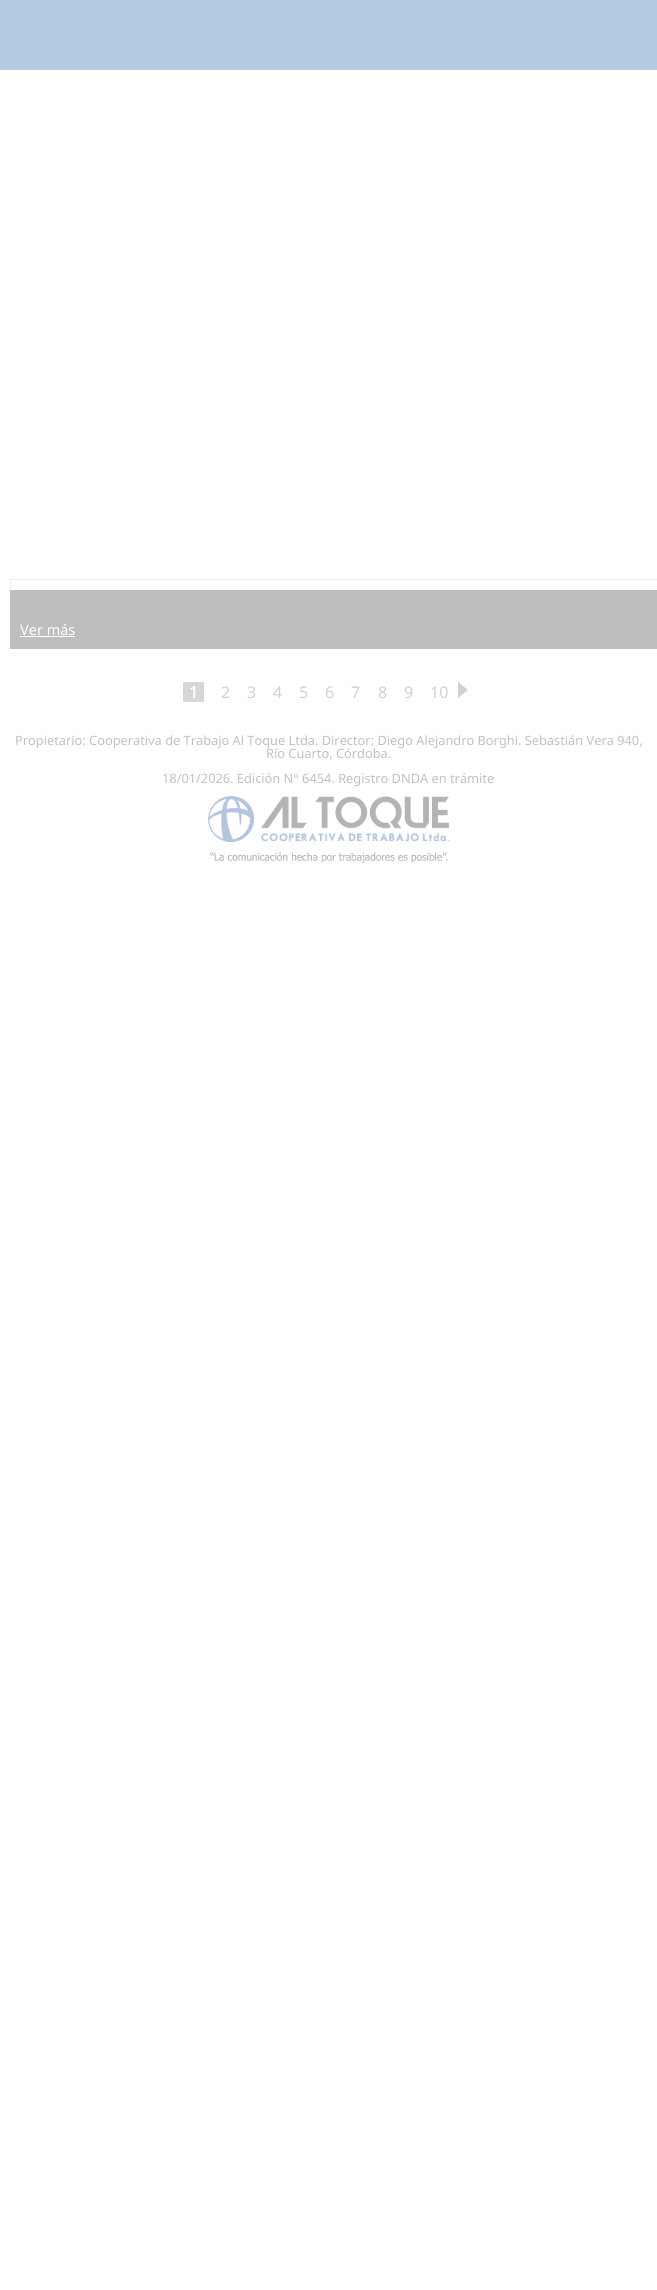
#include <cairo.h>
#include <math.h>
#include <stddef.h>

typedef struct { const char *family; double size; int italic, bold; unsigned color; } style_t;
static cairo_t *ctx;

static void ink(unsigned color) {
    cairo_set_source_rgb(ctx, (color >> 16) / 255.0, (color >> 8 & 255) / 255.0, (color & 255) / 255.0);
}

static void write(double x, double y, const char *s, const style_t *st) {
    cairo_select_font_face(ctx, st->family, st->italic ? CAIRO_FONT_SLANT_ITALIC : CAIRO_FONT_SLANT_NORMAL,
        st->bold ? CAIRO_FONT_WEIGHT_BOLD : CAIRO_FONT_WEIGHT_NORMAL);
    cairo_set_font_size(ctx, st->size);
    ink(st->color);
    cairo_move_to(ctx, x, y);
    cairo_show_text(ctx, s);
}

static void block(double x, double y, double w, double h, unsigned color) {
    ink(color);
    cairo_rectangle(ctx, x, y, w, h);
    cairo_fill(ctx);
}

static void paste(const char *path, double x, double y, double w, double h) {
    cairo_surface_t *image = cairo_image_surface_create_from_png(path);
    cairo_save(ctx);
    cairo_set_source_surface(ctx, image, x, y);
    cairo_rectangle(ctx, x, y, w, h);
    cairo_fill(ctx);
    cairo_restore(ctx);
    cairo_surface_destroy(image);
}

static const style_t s1 = {"Noto Sans", 14.5, 0, 0, 0xffffff};
static const style_t s2 = {"Noto Sans", 16, 0, 1, 0xffffff};
static const style_t s3 = {"Noto Sans", 16, 0, 0, 0xd0d1d2};
static const style_t s4 = {"Noto Sans", 12.8, 0, 0, 0xc1c1c1};

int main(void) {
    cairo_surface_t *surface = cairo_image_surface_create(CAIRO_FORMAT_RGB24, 657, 2290);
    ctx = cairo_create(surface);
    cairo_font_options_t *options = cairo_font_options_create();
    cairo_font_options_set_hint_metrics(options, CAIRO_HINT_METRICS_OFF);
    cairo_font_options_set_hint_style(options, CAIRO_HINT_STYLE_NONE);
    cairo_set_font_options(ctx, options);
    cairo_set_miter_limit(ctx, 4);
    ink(0xffffff);
    cairo_paint(ctx);
    block(0, 0, 657, 70, 0xb5cbe3);
    block(10, 579, 647, 1, 0xeeeeee);
    block(10, 579, 1, 11, 0xeeeeee);
    block(10, 590, 647, 59, 0xbebebe);
    write(20, 635, "Ver más", &s1);
    block(20, 636, 55, 1, 0xffffff);
    block(183, 682, 21, 20, 0xd6d7d8);
    write(189, 698, "1", &s2);
    write(221, 698, "2", &s3);
    write(247, 698, "3", &s3);
    write(273, 698, "4", &s3);
    write(299, 698, "5", &s3);
    write(325, 698, "6", &s3);
    write(351, 698, "7", &s3);
    write(378, 698, "8", &s3);
    write(404, 698, "9", &s3);
    write(430, 698, "10", &s3);
    cairo_new_path(ctx);
    cairo_move_to(ctx, 458, 698);
    cairo_line_to(ctx, 458, 682);
    cairo_line_to(ctx, 468, 690);
    cairo_close_path(ctx);
    cairo_fill(ctx);
    write(15, 745, "Propietario: Cooperativa de Trabajo Al Toque Ltda. Director: Diego Alejandro Borghi. Sebastián Vera 940,", &s4);
    write(266, 758, "Río Cuarto, Córdoba.", &s4);
    write(162, 783, "18/01/2026. Edición N° 6454. Registro DNDA en trámite", &s4);
    paste("pic1.png", 208, 796, 241, 67);
    cairo_surface_write_to_png(surface, "screenshot.png");
    cairo_font_options_destroy(options);
    cairo_destroy(ctx);
    cairo_surface_destroy(surface);
    return 0;
}
